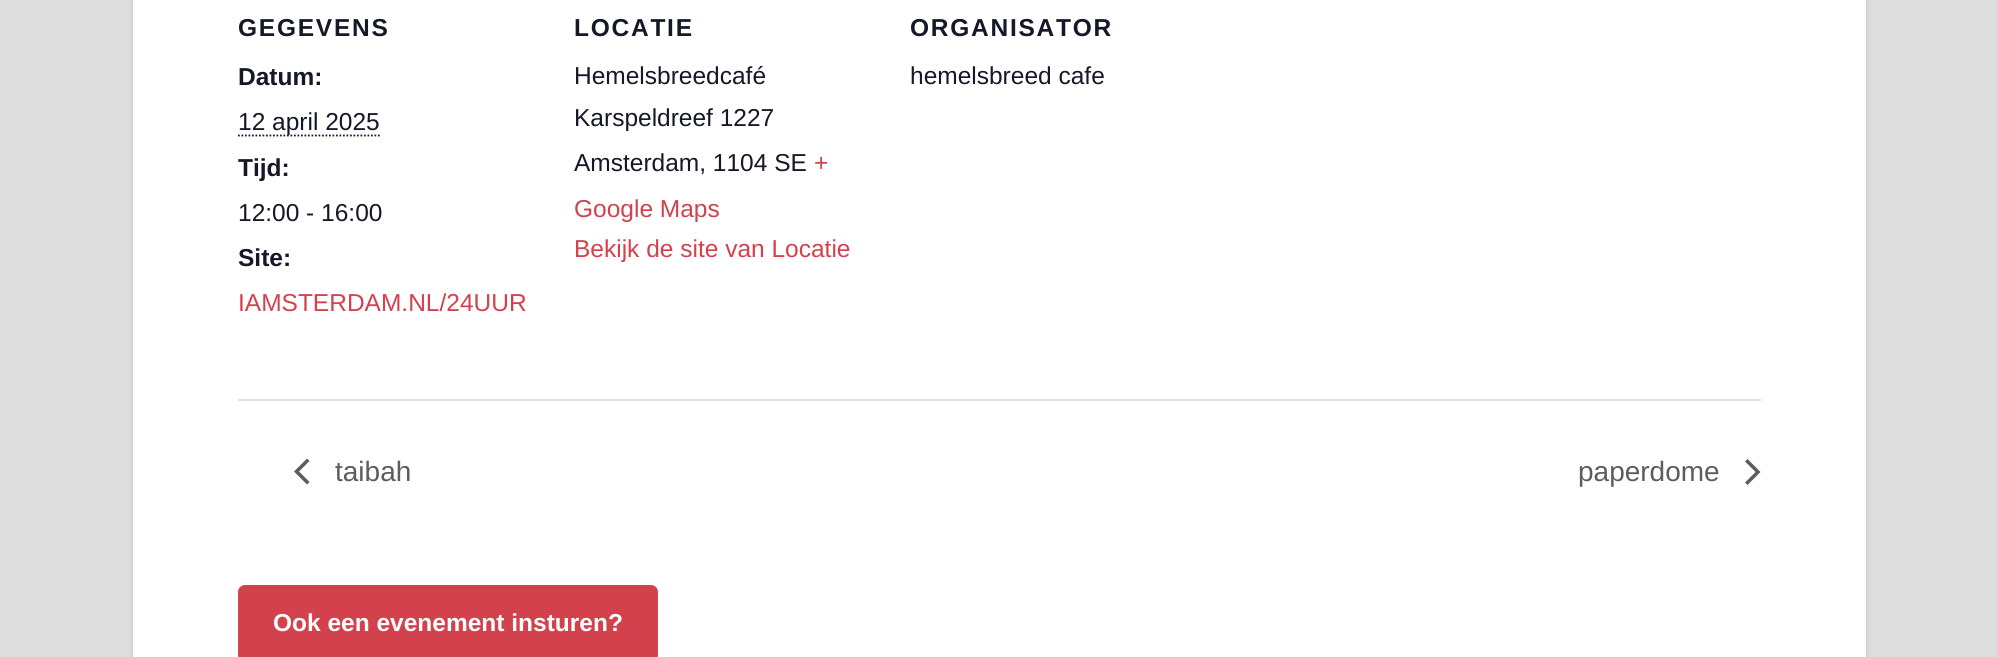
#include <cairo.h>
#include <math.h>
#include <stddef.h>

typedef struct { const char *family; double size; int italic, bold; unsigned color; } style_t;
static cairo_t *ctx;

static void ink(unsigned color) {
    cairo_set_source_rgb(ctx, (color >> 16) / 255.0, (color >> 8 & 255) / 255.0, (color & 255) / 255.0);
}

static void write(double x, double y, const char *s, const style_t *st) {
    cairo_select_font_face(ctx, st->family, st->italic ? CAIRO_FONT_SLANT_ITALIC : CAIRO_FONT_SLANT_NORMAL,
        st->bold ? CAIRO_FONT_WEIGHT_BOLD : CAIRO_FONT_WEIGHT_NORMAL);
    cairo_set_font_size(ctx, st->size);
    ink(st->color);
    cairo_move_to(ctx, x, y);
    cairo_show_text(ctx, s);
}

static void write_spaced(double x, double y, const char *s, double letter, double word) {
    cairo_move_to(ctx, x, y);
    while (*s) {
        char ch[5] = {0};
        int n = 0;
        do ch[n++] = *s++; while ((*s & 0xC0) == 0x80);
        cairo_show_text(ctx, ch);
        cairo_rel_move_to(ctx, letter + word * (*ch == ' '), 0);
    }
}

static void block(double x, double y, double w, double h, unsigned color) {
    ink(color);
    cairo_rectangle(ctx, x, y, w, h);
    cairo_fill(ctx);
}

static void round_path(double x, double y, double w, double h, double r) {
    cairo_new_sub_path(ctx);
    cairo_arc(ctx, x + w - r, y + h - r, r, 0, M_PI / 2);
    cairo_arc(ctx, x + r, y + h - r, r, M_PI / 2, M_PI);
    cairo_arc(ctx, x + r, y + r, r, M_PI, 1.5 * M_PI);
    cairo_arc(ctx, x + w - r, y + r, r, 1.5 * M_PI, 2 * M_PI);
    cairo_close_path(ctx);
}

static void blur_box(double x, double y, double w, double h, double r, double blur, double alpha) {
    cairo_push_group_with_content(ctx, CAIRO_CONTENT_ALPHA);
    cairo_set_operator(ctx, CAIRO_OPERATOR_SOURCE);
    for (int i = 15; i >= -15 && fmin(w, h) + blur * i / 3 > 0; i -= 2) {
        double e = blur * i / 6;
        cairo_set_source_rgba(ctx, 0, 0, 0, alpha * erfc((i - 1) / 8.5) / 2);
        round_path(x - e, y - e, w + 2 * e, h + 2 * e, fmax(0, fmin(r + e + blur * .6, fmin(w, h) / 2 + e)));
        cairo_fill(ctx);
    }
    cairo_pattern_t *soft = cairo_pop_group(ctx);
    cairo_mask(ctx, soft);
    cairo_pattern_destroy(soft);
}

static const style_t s1 = {"Liberation Sans", 24.5, 0, 1, 0x141827};
static const style_t s2 = {"Liberation Sans", 24.5, 0, 0, 0x141827};
static const style_t s3 = {"Liberation Sans", 24.5, 0, 0, 0xd3414d};
static const style_t s4 = {"Liberation Sans", 28, 0, 0, 0x5d5d5d};
static const style_t s5 = {"Liberation Sans", 24.5, 0, 1, 0xffffff};

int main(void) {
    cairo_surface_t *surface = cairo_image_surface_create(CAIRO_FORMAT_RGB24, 1997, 657);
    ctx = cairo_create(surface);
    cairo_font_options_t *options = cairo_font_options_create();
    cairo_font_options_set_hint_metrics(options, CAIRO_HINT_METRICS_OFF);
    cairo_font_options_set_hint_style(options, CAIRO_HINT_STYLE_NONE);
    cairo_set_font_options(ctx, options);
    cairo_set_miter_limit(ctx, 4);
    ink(0xdddddd);
    cairo_paint(ctx);
    ink(0xbbbbbb);
    blur_box(133, -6, 1733, 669, 0, 2, 1);
    block(133, 0, 1733, 657, 0xffffff);
    cairo_select_font_face(ctx, "Liberation Sans", CAIRO_FONT_SLANT_NORMAL, CAIRO_FONT_WEIGHT_BOLD);
    cairo_set_font_size(ctx, 24.5);
    ink(0x141827);
    write_spaced(238, 36, "GEGEVENS", 1.75, 0);
    write(238, 85, "Datum:", &s1);
    cairo_new_path(ctx);
    cairo_move_to(ctx, 238, 135.5);
    cairo_line_to(ctx, 380, 135.5);
    cairo_set_line_width(ctx, 1.8);
    cairo_set_dash(ctx, (double[]){1.75, 1.75}, 2, 0);
    cairo_stroke(ctx);
    write(238, 130, "12 april 2025", &s2);
    write(238, 176, "Tijd:", &s1);
    write(238, 221, "12:00 - 16:00", &s2);
    write(238, 266, "Site:", &s1);
    write(238, 311, "IAMSTERDAM.NL/24UUR", &s3);
    cairo_select_font_face(ctx, "Liberation Sans", CAIRO_FONT_SLANT_NORMAL, CAIRO_FONT_WEIGHT_BOLD);
    ink(0x141827);
    write_spaced(574, 36, "LOCATIE", 1.75, 0);
    write(574, 84, "Hemelsbreedcafé", &s2);
    write(574, 126, "Karspeldreef 1227", &s2);
    write(574, 171, "Amsterdam, 1104 SE", &s2);
    write(814, 171, "+", &s3);
    write(574, 217, "Google Maps", &s3);
    write(574, 257, "Bekijk de site van Locatie", &s3);
    cairo_select_font_face(ctx, "Liberation Sans", CAIRO_FONT_SLANT_NORMAL, CAIRO_FONT_WEIGHT_BOLD);
    ink(0x141827);
    write_spaced(910, 36, "ORGANISATOR", 1.75, 0);
    write(910, 84, "hemelsbreed cafe", &s2);
    block(238, 399, 1523, 2, 0xe4e4e4);
    ink(0x5d5d5d);
    cairo_new_path(ctx);
    cairo_move_to(ctx, 309.5, 482);
    cairo_line_to(ctx, 307, 484.5);
    cairo_line_to(ctx, 294, 471.5);
    cairo_line_to(ctx, 307, 458.5);
    cairo_line_to(ctx, 309.5, 461);
    cairo_line_to(ctx, 299, 471.5);
    cairo_close_path(ctx);
    cairo_fill(ctx);
    write(335, 481, "taibah", &s4);
    write(1578, 481, "paperdome", &s4);
    cairo_new_path(ctx);
    cairo_move_to(ctx, 1745, 461.5);
    cairo_line_to(ctx, 1747.5, 459);
    cairo_line_to(ctx, 1760.5, 472);
    cairo_line_to(ctx, 1747.5, 485);
    cairo_line_to(ctx, 1745, 482.5);
    cairo_line_to(ctx, 1755.5, 472);
    cairo_close_path(ctx);
    cairo_fill(ctx);
    ink(0xd3414d);
    round_path(238, 585, 420, 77, 7);
    cairo_fill(ctx);
    write(273, 631, "Ook een evenement insturen?", &s5);
    cairo_surface_write_to_png(surface, "screenshot.png");
    cairo_font_options_destroy(options);
    cairo_destroy(ctx);
    cairo_surface_destroy(surface);
    return 0;
}
